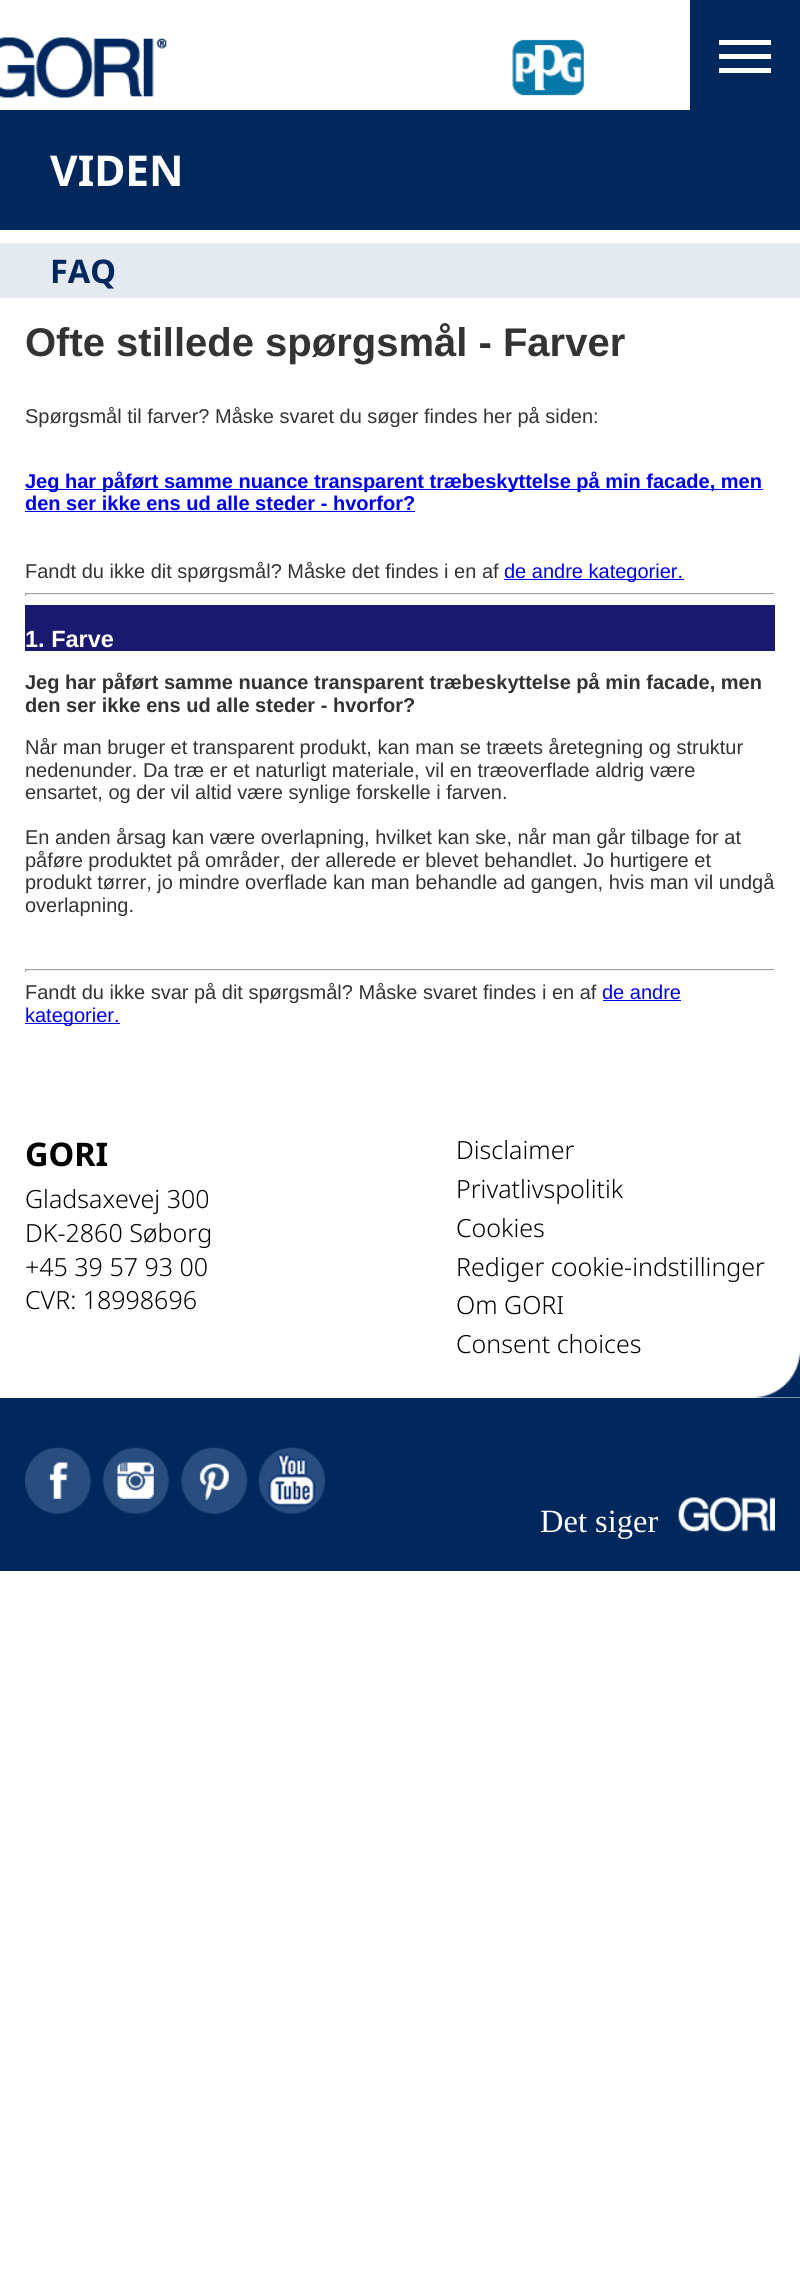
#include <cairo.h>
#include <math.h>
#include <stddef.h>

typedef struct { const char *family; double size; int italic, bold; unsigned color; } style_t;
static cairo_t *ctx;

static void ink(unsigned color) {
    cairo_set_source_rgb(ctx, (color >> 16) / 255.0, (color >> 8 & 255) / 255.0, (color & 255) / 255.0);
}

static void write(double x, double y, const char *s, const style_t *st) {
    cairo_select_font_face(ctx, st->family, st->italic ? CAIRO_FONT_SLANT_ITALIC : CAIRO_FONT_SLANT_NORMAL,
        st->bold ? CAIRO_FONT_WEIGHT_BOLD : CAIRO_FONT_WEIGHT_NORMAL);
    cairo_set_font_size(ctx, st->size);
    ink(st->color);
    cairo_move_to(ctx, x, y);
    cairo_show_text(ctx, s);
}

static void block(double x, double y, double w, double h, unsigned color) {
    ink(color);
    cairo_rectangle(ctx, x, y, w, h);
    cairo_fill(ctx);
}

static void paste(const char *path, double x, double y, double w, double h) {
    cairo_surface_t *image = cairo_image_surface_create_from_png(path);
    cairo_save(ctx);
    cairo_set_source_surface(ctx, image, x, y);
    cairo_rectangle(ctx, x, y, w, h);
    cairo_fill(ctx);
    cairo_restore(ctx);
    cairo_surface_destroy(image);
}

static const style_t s1 = {"Noto Sans", 42.5, 0, 1, 0xffffff};
static const style_t s2 = {"Noto Sans", 32.5, 0, 1, 0x00285d};
static const style_t s3 = {"Liberation Sans", 40, 0, 1, 0x333333};
static const style_t s4 = {"Liberation Sans", 20, 0, 0, 0x333333};
static const style_t s5 = {"Liberation Sans", 20, 0, 1, 0x0000ee};
static const style_t s6 = {"Liberation Sans", 20, 0, 0, 0x0000ee};
static const style_t s7 = {"Liberation Sans", 23.5, 0, 1, 0xffffff};
static const style_t s8 = {"Liberation Sans", 20, 0, 1, 0x333333};
static const style_t s9 = {"Noto Sans", 32.5, 0, 1, 0x010101};
static const style_t s10 = {"Noto Sans Light", 25, 0, 0, 0x010101};
static const style_t s11 = {"Liberation Serif", 32.5, 0, 0, 0xffffff};

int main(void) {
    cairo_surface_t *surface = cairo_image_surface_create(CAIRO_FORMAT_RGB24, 800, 2273);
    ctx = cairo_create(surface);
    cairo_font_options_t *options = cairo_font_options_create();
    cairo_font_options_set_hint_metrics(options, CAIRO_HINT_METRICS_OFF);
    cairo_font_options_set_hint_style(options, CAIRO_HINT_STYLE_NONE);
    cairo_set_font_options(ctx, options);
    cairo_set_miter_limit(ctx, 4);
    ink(0xffffff);
    cairo_paint(ctx);
    paste("pic1.png", 0, 37, 167, 61);
    paste("pic2.png", 512, 39, 72, 57);
    block(690, 0, 110, 110, 0x00285d);
    block(719, 68, 52, 5, 0xffffff);
    block(719, 54, 52, 5, 0xffffff);
    block(719, 40, 52, 5, 0xffffff);
    block(0, 110, 800, 120, 0x00285d);
    write(50, 186, "VIDEN", &s1);
    block(0, 243, 800, 55, 0xe5eaf1);
    write(50, 283, "FAQ", &s2);
    write(25, 356, "Ofte stillede spørgsmål - Farver", &s3);
    write(25, 423, "Spørgsmål til farver? Måske svaret du søger findes her på siden:", &s4);
    block(25, 489, 738, 1, 0x0000ee);
    write(25, 488, "Jeg har påført samme nuance transparent træbeskyttelse på min facade, men", &s5);
    write(25, 510, "den ser ikke ens ud alle steder - hvorfor?", &s5);
    block(25, 511, 390, 1, 0x0000ee);
    write(25, 578, "Fandt du ikke dit spørgsmål? Måske det findes i en af", &s4);
    block(504, 579, 180, 1, 0x0000ee);
    write(504, 578, "de andre kategorier.", &s6);
    block(25, 593, 750, 1, 0x9f9f9f);
    block(774, 593, 1, 3, 0xeeeeee);
    block(25, 594, 750, 1, 0xeeeeee);
    block(25, 593, 1, 3, 0x9f9f9f);
    block(25, 605, 750, 46, 0x191970);
    write(25, 647, "1. Farve", &s7);
    write(25, 689, "Jeg har påført samme nuance transparent træbeskyttelse på min facade, men", &s8);
    write(25, 712, "den ser ikke ens ud alle steder - hvorfor?", &s8);
    write(25, 754, "Når man bruger et transparent produkt, kan man se træets åretegning og struktur", &s4);
    write(25, 777, "nedenunder. Da træ er et naturligt materiale, vil en træoverflade aldrig være", &s4);
    write(25, 799, "ensartet, og der vil altid være synlige forskelle i farven.", &s4);
    write(25, 844, "En anden årsag kan være overlapning, hvilket kan ske, når man går tilbage for at", &s4);
    write(25, 867, "påføre produktet på områder, der allerede er blevet behandlet. Jo hurtigere et", &s4);
    write(25, 889, "produkt tørrer, jo mindre overflade kan man behandle ad gangen, hvis man vil undgå", &s4);
    write(25, 912, "overlapning.", &s4);
    block(25, 969, 750, 1, 0x9f9f9f);
    block(774, 969, 1, 3, 0xeeeeee);
    block(25, 970, 750, 1, 0xeeeeee);
    block(25, 969, 1, 3, 0x9f9f9f);
    write(25, 999, "Fandt du ikke svar på dit spørgsmål? Måske svaret findes i en af", &s4);
    write(602, 999, "de andre", &s6);
    block(603, 1000, 78, 1, 0x0000ee);
    block(25, 1023, 95, 1, 0x0000ee);
    write(25, 1022, "kategorier.", &s6);
    write(25, 1166, "GORI", &s9);
    write(25, 1208, "Gladsaxevej 300", &s10);
    write(25, 1242, "DK-2860 Søborg", &s10);
    write(25, 1276, "+45 39 57 93 00", &s10);
    write(25, 1309, "CVR: 18998696", &s10);
    write(456, 1159, "Disclaimer", &s10);
    write(456, 1198, "Privatlivspolitik", &s10);
    write(456, 1237, "Cookies", &s10);
    write(456, 1276, "Rediger cookie-indstillinger", &s10);
    write(456, 1314, "Om GORI", &s10);
    write(456, 1353, "Consent choices", &s10);
    block(0, 1398, 800, 173, 0x00285d);
    paste("pic3.png", 754, 1351, 46, 47);
    paste("pic4.png", 25, 1447, 67, 67);
    paste("pic5.png", 102, 1447, 67, 67);
    paste("pic6.png", 181, 1447, 67, 67);
    paste("pic7.png", 258, 1447, 67, 67);
    write(540, 1532, "Det siger", &s11);
    paste("pic8.png", 678, 1497, 97, 35);
    cairo_surface_write_to_png(surface, "screenshot.png");
    cairo_font_options_destroy(options);
    cairo_destroy(ctx);
    cairo_surface_destroy(surface);
    return 0;
}
